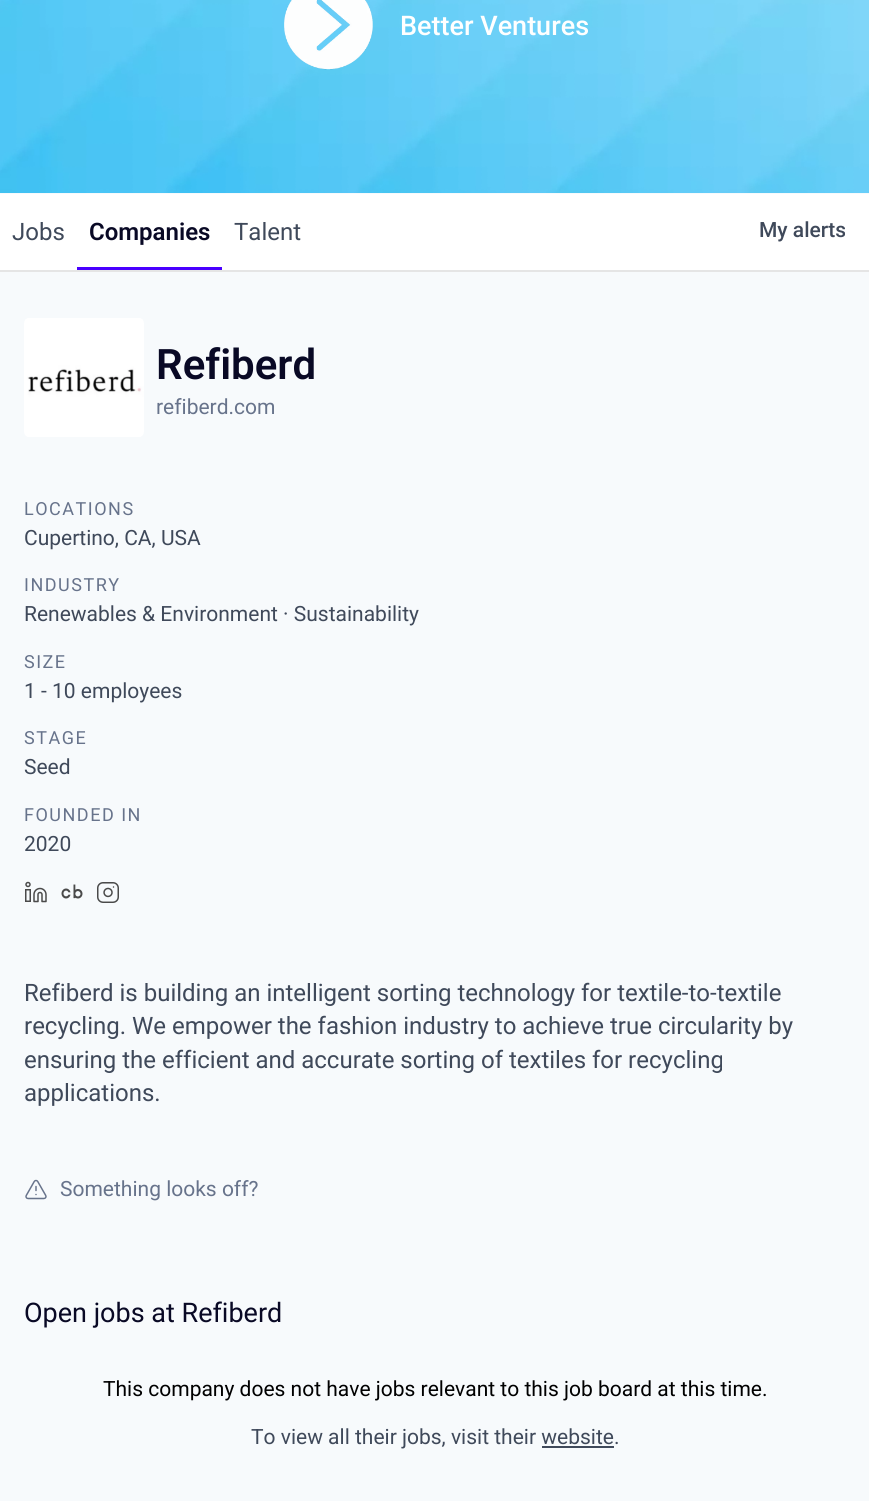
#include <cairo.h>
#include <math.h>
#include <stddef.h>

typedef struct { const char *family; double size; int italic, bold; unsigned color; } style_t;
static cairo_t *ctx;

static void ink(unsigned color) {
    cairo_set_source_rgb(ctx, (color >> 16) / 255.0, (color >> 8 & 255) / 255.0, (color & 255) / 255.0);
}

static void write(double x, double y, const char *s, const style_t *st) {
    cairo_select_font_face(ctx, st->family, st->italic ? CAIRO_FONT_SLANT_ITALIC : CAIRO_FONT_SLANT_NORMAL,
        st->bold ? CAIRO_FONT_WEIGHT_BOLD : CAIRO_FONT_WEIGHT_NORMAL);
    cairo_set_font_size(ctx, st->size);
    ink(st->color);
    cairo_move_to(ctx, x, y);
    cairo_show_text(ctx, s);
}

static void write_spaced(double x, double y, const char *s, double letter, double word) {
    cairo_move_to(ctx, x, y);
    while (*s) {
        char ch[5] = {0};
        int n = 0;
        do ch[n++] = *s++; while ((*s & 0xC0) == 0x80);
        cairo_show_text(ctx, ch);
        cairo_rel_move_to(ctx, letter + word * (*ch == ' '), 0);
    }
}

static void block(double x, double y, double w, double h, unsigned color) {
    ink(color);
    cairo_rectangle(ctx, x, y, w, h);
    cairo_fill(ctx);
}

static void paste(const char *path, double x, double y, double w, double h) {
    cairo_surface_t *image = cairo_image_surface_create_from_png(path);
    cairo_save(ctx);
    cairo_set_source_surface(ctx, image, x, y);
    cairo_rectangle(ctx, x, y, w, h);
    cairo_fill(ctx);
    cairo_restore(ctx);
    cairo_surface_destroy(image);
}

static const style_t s1 = {"Roboto Medium", 27, 0, 0, 0xffffff};
static const style_t s2 = {"Roboto", 24, 0, 0, 0x3f495a};
static const style_t s3 = {"Roboto SemiBold", 24, 0, 0, 0x090925};
static const style_t s4 = {"Roboto Medium", 21, 0, 0, 0x3f495a};
static const style_t s5 = {"Roboto SemiBold", 42, 0, 0, 0x090925};
static const style_t s6 = {"Roboto", 21, 0, 0, 0x67738b};
static const style_t s7 = {"Roboto", 21, 0, 0, 0x3f495a};
static const style_t s8 = {"Roboto", 27, 0, 0, 0x090925};
static const style_t s9 = {"Roboto", 21, 0, 0, 0x000000};

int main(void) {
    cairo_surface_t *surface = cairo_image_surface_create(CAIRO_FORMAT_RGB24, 869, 1501);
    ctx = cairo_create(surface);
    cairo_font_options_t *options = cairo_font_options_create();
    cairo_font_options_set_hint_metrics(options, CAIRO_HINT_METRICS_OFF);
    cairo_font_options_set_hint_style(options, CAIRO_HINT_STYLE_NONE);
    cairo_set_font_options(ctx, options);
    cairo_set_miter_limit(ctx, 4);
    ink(0xf7fafc);
    cairo_paint(ctx);
    paste("pic1.png", 0, 0, 869, 193);
    paste("pic2.png", 284, 0, 89, 70);
    write(400, 35, "Better Ventures", &s1);
    block(0, 270, 869, 2, 0xe5e5e5);
    block(0, 194, 869, 76, 0xffffff);
    write(12, 240, "Jobs", &s2);
    write(89, 240, "Companies", &s3);
    block(77, 267, 145, 3, 0x4900ff);
    write(234, 240, "Talent", &s2);
    write(759, 237, "My alerts", &s4);
    paste("pic3.png", 24, 318, 120, 119);
    write(156, 379, "Refiberd", &s5);
    write(156, 414, "refiberd.com", &s6);
    cairo_set_font_size(ctx, 18);
    write_spaced(24, 515, "LOCATIONS", 1.5, 0);
    write(24, 545, "Cupertino, CA, USA", &s7);
    cairo_set_font_size(ctx, 18);
    ink(0x67738b);
    write_spaced(24, 591, "INDUSTRY", 1.5, 0);
    write(24, 621, "Renewables & Environment · Sustainability", &s7);
    cairo_set_font_size(ctx, 18);
    ink(0x67738b);
    write_spaced(24, 668, "SIZE", 1.5, 0);
    write(24, 698, "1 - 10 employees", &s7);
    cairo_set_font_size(ctx, 18);
    ink(0x67738b);
    write_spaced(24, 744, "STAGE", 1.5, 0);
    write(24, 774, "Seed", &s7);
    cairo_set_font_size(ctx, 18);
    ink(0x67738b);
    write_spaced(24, 821, "FOUNDED IN", 1.5, 0);
    write(24, 851, "2020", &s7);
    paste("pic4.png", 25, 881, 22, 22);
    paste("pic5.png", 61, 884, 22, 15);
    paste("pic6.png", 97, 882, 22, 21);
    write(24, 1001, "Refiberd is building an intelligent sorting technology for textile-to-textile", &s2);
    write(24, 1034, "recycling. We empower the fashion industry to achieve true circularity by", &s2);
    write(24, 1068, "ensuring the efficient and accurate sorting of textiles for recycling", &s2);
    write(24, 1101, "applications.", &s2);
    paste("pic7.png", 25, 1179, 22, 21);
    write(60, 1196, "Something looks off?", &s6);
    write(24, 1322, "Open jobs at Refiberd", &s8);
    write(103, 1396, "This company does not have jobs relevant to this job board at this time.", &s9);
    write(251, 1444, "To view all their jobs, visit their website.", &s7);
    block(542, 1446, 72, 2, 0x3f495a);
    cairo_surface_write_to_png(surface, "screenshot.png");
    cairo_font_options_destroy(options);
    cairo_destroy(ctx);
    cairo_surface_destroy(surface);
    return 0;
}
